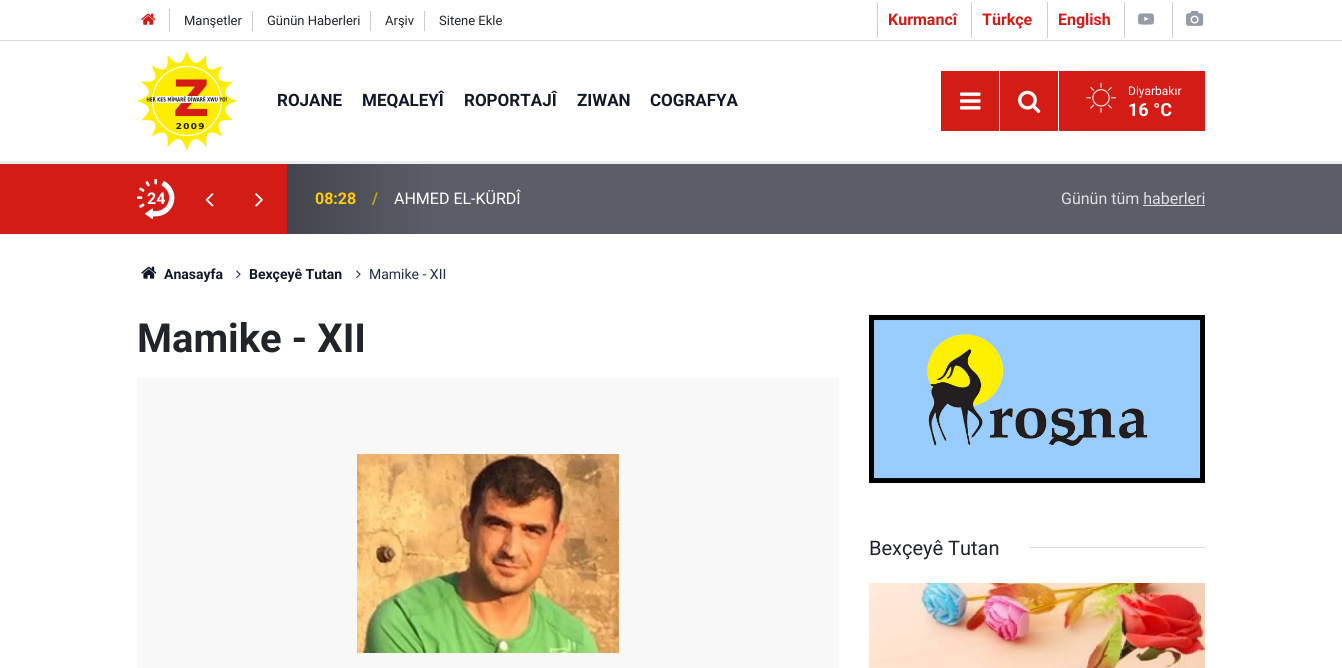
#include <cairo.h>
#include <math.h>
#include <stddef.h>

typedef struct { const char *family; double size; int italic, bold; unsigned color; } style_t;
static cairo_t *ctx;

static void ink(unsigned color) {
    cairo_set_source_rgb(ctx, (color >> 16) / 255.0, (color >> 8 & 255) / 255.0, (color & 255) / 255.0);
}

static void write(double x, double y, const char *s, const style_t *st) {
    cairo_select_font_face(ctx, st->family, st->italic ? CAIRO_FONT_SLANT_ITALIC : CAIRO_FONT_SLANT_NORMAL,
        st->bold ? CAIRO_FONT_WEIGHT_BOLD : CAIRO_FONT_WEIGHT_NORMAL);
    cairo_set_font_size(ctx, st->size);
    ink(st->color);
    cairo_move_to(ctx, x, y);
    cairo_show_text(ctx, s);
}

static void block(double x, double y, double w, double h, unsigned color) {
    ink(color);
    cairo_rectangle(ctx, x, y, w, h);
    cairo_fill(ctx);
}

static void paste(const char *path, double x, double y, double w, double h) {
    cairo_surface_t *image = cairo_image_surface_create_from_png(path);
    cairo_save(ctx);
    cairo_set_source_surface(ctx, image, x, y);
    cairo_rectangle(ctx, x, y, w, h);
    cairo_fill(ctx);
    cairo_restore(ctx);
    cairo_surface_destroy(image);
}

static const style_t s1 = {"Roboto", 13, 0, 0, 0x212529};
static const style_t s2 = {"Roboto", 16, 0, 1, 0xd41c16};
static const style_t s3 = {"Roboto", 17, 0, 1, 0x12182a};
static const style_t s4 = {"Roboto", 12, 0, 0, 0xffffff};
static const style_t s5 = {"Roboto", 18, 0, 1, 0xffffff};
static const style_t s6 = {"Roboto", 16, 0, 1, 0xffffff};
static const style_t s7 = {"Roboto", 16, 0, 1, 0xffcb05};
static const style_t s8 = {"Roboto", 16, 0, 1, 0xd1a600};
static const style_t s9 = {"Roboto", 16, 0, 0, 0xffffff};
static const style_t s10 = {"Roboto", 16, 0, 0, 0xdedfe1};
static const style_t s11 = {"Roboto", 14, 0, 1, 0x12182a};
static const style_t s12 = {"Roboto", 14, 0, 0, 0x212c4e};
static const style_t s13 = {"Roboto", 40, 0, 1, 0x212529};
static const style_t s14 = {"Roboto", 20, 0, 0, 0x212529};

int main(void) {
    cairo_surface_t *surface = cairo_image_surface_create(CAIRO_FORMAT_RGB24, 1342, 668);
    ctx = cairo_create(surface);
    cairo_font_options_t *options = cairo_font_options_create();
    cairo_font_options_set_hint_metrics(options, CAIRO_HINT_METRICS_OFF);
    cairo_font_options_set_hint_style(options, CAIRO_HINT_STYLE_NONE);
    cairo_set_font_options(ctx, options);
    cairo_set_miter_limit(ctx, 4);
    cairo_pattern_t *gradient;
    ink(0xffffff);
    cairo_paint(ctx);
    block(169, 9, 1, 23, 0xcccccc);
    paste("pic1.png", 141, 13, 15, 12);
    block(252, 11, 1, 20, 0xcccccc);
    write(184, 25, "Manşetler", &s1);
    block(370, 11, 1, 20, 0xcccccc);
    write(267, 25, "Günün Haberleri", &s1);
    block(424, 11, 1, 20, 0xcccccc);
    write(385, 25, "Arşiv", &s1);
    write(439, 25, "Sitene Ekle", &s1);
    block(877, 2, 1, 36, 0xcccccc);
    write(888, 25, "Kurmancî", &s2);
    block(971, 2, 1, 36, 0xcccccc);
    write(982, 25, "Türkçe", &s2);
    block(1047, 2, 1, 36, 0xcccccc);
    write(1058, 25, "English", &s2);
    block(1124, 2, 1, 36, 0xcccccc);
    paste("pic2.png", 1138, 13, 16, 12);
    block(1172, 2, 1, 36, 0xcccccc);
    paste("pic3.png", 1186, 11, 18, 15);
    block(0, 40, 1342, 1, 0xd7dae1);
    block(0, 161, 1342, 3, 0xecedee);
    paste("pic4.png", 137, 51, 100, 100);
    write(277, 106, "ROJANE", &s3);
    write(362, 106, "MEQALEYÎ", &s3);
    write(464, 106, "ROPORTAJÎ", &s3);
    write(577, 106, "ZIWAN", &s3);
    write(650, 106, "COGRAFYA", &s3);
    block(941, 71, 58, 60, 0xd41c16);
    paste("pic5.png", 960, 92, 21, 18);
    block(1000, 71, 58, 60, 0xd41c16);
    paste("pic6.png", 1018, 90, 23, 23);
    block(1059, 71, 146, 60, 0xd41c16);
    paste("pic7.png", 1086, 82, 30, 31);
    write(1128, 95, "Diyarbakır", &s4);
    write(1128, 116, "16 °C", &s5);
    block(0, 164, 137, 70, 0xd41c16);
    block(1205, 164, 137, 70, 0x5b5e68);
    gradient = cairo_pattern_create_linear(137, 199, 1205, 199);
    cairo_pattern_add_color_stop_rgba(gradient, 0.05, 0.831, 0.11, 0.086, 1);
    cairo_pattern_add_color_stop_rgba(gradient, 0.14, 0.831, 0.11, 0.086, 1);
    cairo_pattern_add_color_stop_rgba(gradient, 0.14, 0.263, 0.271, 0.302, 1);
    cairo_pattern_add_color_stop_rgba(gradient, 0.28, 0.357, 0.369, 0.408, 1);
    cairo_set_source(ctx, gradient);
    cairo_pattern_destroy(gradient);
    cairo_rectangle(ctx, 137, 164, 1068, 70);
    cairo_fill(ctx);
    paste("pic8.png", 137, 179, 38, 40);
    write(147, 204, "24", &s6);
    paste("pic9.png", 205, 193, 9, 14);
    paste("pic10.png", 255, 193, 8, 14);
    write(315, 204, "08:28", &s7);
    write(372, 204, "/", &s8);
    write(394, 204, "AHMED EL-KÜRDÎ", &s9);
    write(1061, 204, "Günün tüm haberleri", &s10);
    block(1143, 205, 62, 1, 0xdedfe1);
    paste("pic11.png", 141, 266, 16, 13);
    write(164, 279, "Anasayfa", &s11);
    paste("pic12.png", 236, 270, 5, 9);
    write(249, 279, "Bexçeyê Tutan", &s11);
    paste("pic12.png", 356, 270, 5, 9);
    write(369, 279, "Mamike - XII", &s12);
    write(137, 352, "Mamike - XII", &s13);
    block(137, 378, 702, 290, 0xf8f8f8);
    paste("pic13.png", 357, 454, 262, 199);
    paste("pic14.png", 869, 315, 336, 168);
    write(869, 555, "Bexçeyê Tutan", &s14);
    block(1030, 547, 175, 1, 0xd9dbe2);
    paste("pic15.png", 869, 583, 336, 85);
    cairo_surface_write_to_png(surface, "screenshot.png");
    cairo_font_options_destroy(options);
    cairo_destroy(ctx);
    cairo_surface_destroy(surface);
    return 0;
}
